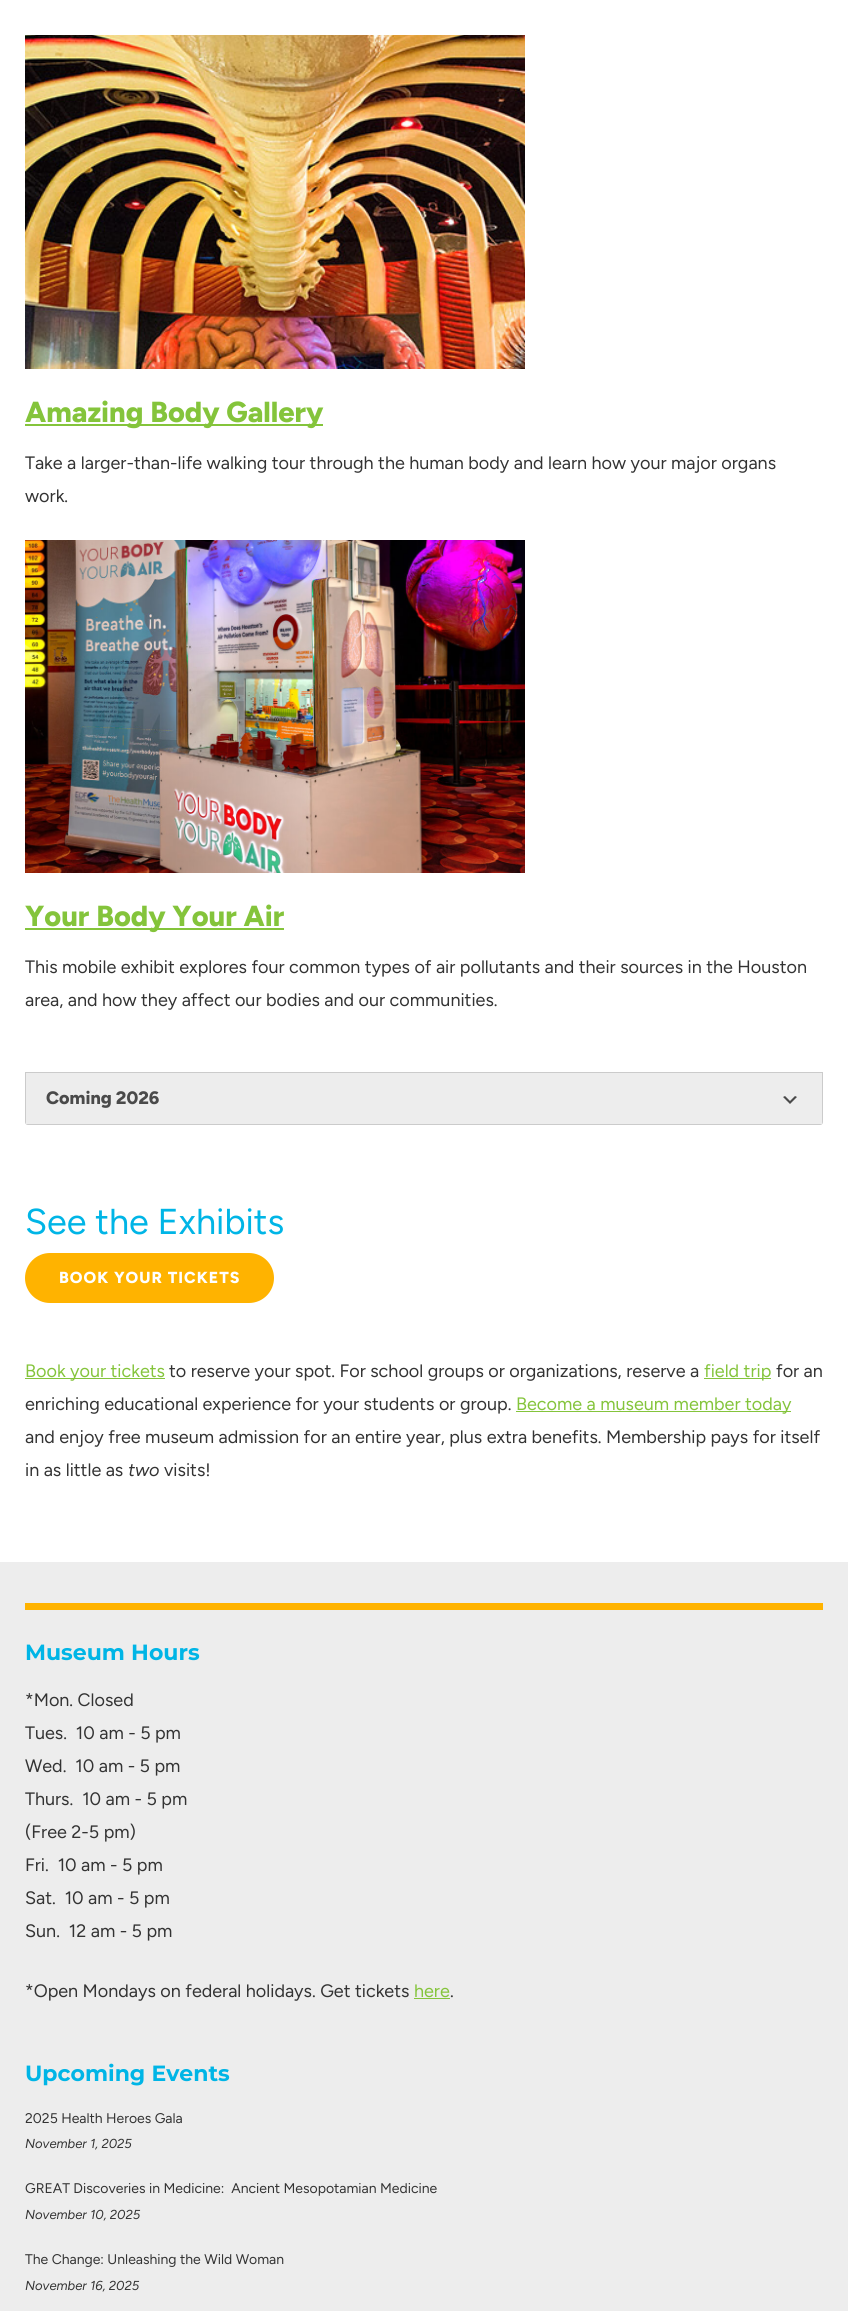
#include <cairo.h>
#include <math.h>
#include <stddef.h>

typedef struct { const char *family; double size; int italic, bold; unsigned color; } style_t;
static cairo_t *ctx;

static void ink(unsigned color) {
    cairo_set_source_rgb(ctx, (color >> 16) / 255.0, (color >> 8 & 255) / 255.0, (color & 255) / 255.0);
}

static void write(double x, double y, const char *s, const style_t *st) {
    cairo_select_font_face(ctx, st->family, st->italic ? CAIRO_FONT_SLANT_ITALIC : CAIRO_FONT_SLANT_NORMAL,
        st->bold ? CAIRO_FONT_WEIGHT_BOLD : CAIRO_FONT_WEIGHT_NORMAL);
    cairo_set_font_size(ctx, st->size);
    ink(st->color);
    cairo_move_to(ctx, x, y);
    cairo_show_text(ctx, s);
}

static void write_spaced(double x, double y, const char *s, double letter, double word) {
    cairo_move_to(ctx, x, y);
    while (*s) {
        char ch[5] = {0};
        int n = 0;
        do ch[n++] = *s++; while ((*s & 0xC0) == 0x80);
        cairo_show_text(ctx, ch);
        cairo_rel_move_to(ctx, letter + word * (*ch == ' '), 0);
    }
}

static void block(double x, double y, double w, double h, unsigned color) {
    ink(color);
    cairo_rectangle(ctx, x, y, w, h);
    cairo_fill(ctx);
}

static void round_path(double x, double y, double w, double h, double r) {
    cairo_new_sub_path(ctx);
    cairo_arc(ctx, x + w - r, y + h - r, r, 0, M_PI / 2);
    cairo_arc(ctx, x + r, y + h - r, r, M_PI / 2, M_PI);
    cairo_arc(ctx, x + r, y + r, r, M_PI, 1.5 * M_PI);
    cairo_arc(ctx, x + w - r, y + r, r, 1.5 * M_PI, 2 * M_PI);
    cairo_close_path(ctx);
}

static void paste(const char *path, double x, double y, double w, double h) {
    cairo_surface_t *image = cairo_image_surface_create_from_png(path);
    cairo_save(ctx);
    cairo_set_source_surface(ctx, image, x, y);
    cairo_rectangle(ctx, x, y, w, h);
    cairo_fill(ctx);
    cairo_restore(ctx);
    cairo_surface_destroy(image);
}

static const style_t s1 = {"Figtree ExtraBold", 29, 0, 0, 0x84c43b};
static const style_t s2 = {"Figtree", 18, 0, 0, 0x333333};
static const style_t s3 = {"Figtree ExtraBold", 18, 0, 0, 0x4a4a4a};
static const style_t s4 = {"Figtree", 36, 0, 0, 0x00b5e6};
static const style_t s5 = {"Figtree", 18, 0, 0, 0x84c43b};
static const style_t s6 = {"Figtree", 18, 1, 0, 0x333333};
static const style_t s7 = {"Montserrat", 22, 0, 1, 0x00b5e6};
static const style_t s8 = {"Figtree", 14, 0, 0, 0x333333};
static const style_t s9 = {"Figtree", 13, 1, 0, 0x333333};

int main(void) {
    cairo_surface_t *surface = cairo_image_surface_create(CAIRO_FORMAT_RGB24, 848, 2311);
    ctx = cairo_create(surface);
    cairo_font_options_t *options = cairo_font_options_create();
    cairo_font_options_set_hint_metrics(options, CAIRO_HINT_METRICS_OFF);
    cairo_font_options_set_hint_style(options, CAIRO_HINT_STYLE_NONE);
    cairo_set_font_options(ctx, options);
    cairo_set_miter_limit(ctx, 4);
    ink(0xffffff);
    cairo_paint(ctx);
    paste("pic1.png", 25, 35, 500, 334);
    block(25, 424, 298, 2, 0x84c43b);
    write(25, 422, "Amazing Body Gallery", &s1);
    write(25, 469, "Take a larger-than-life walking tour through the human body and learn how your major organs", &s2);
    write(25, 502, "work.", &s2);
    paste("pic2.png", 25, 540, 500, 333);
    block(25, 928, 259, 2, 0x84c43b);
    write(25, 926, "Your Body Your Air", &s1);
    write(25, 973, "This mobile exhibit explores four common types of air pollutants and their sources in the Houston", &s2);
    write(25, 1006, "area, and how they affect our bodies and our communities.", &s2);
    cairo_new_path(ctx);
    cairo_move_to(ctx, 25.5, 1072.5);
    cairo_line_to(ctx, 822.5, 1072.5);
    cairo_line_to(ctx, 822.5, 1122);
    cairo_curve_to(ctx, 822.5, 1123.5, 821.5, 1124.5, 820, 1124.5);
    cairo_line_to(ctx, 28, 1124.5);
    cairo_curve_to(ctx, 26.5, 1124.5, 25.5, 1123.5, 25.5, 1122);
    cairo_close_path(ctx);
    ink(0xcbcbcb);
    cairo_set_line_width(ctx, 1);
    cairo_stroke(ctx);
    block(26, 1073, 796, 51, 0xededed);
    write(46, 1104, "Coming 2026", &s3);
    paste("pic3.png", 783, 1096, 14, 8);
    write(25, 1234, "See the Exhibits", &s4);
    ink(0xffb300);
    round_path(25, 1253, 249, 50, 25);
    cairo_fill(ctx);
    cairo_select_font_face(ctx, "Figtree ExtraBold", CAIRO_FONT_SLANT_NORMAL, CAIRO_FONT_WEIGHT_NORMAL);
    cairo_set_font_size(ctx, 16);
    ink(0xffffff);
    write_spaced(59, 1283, "BOOK YOUR TICKETS", 1, 0);
    block(25, 1378, 140, 1, 0x84c43b);
    write(25, 1377, "Book your tickets", &s5);
    write(169, 1377, "to reserve your spot. For school groups or organizations, reserve a", &s2);
    block(704, 1378, 67, 1, 0x84c43b);
    write(704, 1377, "field trip", &s5);
    write(776, 1377, "for an", &s2);
    write(25, 1410, "enriching educational experience for your students or group.", &s2);
    block(516, 1411, 275, 1, 0x84c43b);
    write(516, 1410, "Become a museum member today", &s5);
    write(25, 1443, "and enjoy free museum admission for an entire year, plus extra benefits. Membership pays for itself", &s2);
    write(25, 1476, "in as little as", &s2);
    write(128, 1476, "two", &s6);
    write(164, 1476, "visits!", &s2);
    block(0, 1562, 848, 749, 0xededed);
    block(25, 1603, 798, 7, 0xffb300);
    write(25, 1660, "Museum Hours", &s7);
    write(25, 1706, "*Mon. Closed", &s2);
    write(25, 1739, "Tues.  10 am - 5 pm", &s2);
    write(25, 1772, "Wed.  10 am - 5 pm", &s2);
    write(25, 1805, "Thurs.  10 am - 5 pm", &s2);
    write(25, 1838, "(Free 2-5 pm)", &s2);
    write(25, 1871, "Fri.  10 am - 5 pm", &s2);
    write(25, 1904, "Sat.  10 am - 5 pm", &s2);
    write(25, 1937, "Sun.  12 am - 5 pm", &s2);
    write(25, 1997, "*Open Mondays on federal holidays. Get tickets", &s2);
    write(414, 1997, "here", &s5);
    block(414, 1998, 36, 1, 0x84c43b);
    write(450, 1997, ".", &s2);
    write(25, 2081, "Upcoming Events", &s7);
    write(25, 2123, "2025 Health Heroes Gala", &s8);
    write(25, 2148, "November 1, 2025", &s9);
    write(25, 2193, "GREAT Discoveries in Medicine:  Ancient Mesopotamian Medicine", &s8);
    write(25, 2219, "November 10, 2025", &s9);
    write(25, 2264, "The Change: Unleashing the Wild Woman", &s8);
    write(25, 2290, "November 16, 2025", &s9);
    cairo_surface_write_to_png(surface, "screenshot.png");
    cairo_font_options_destroy(options);
    cairo_destroy(ctx);
    cairo_surface_destroy(surface);
    return 0;
}
